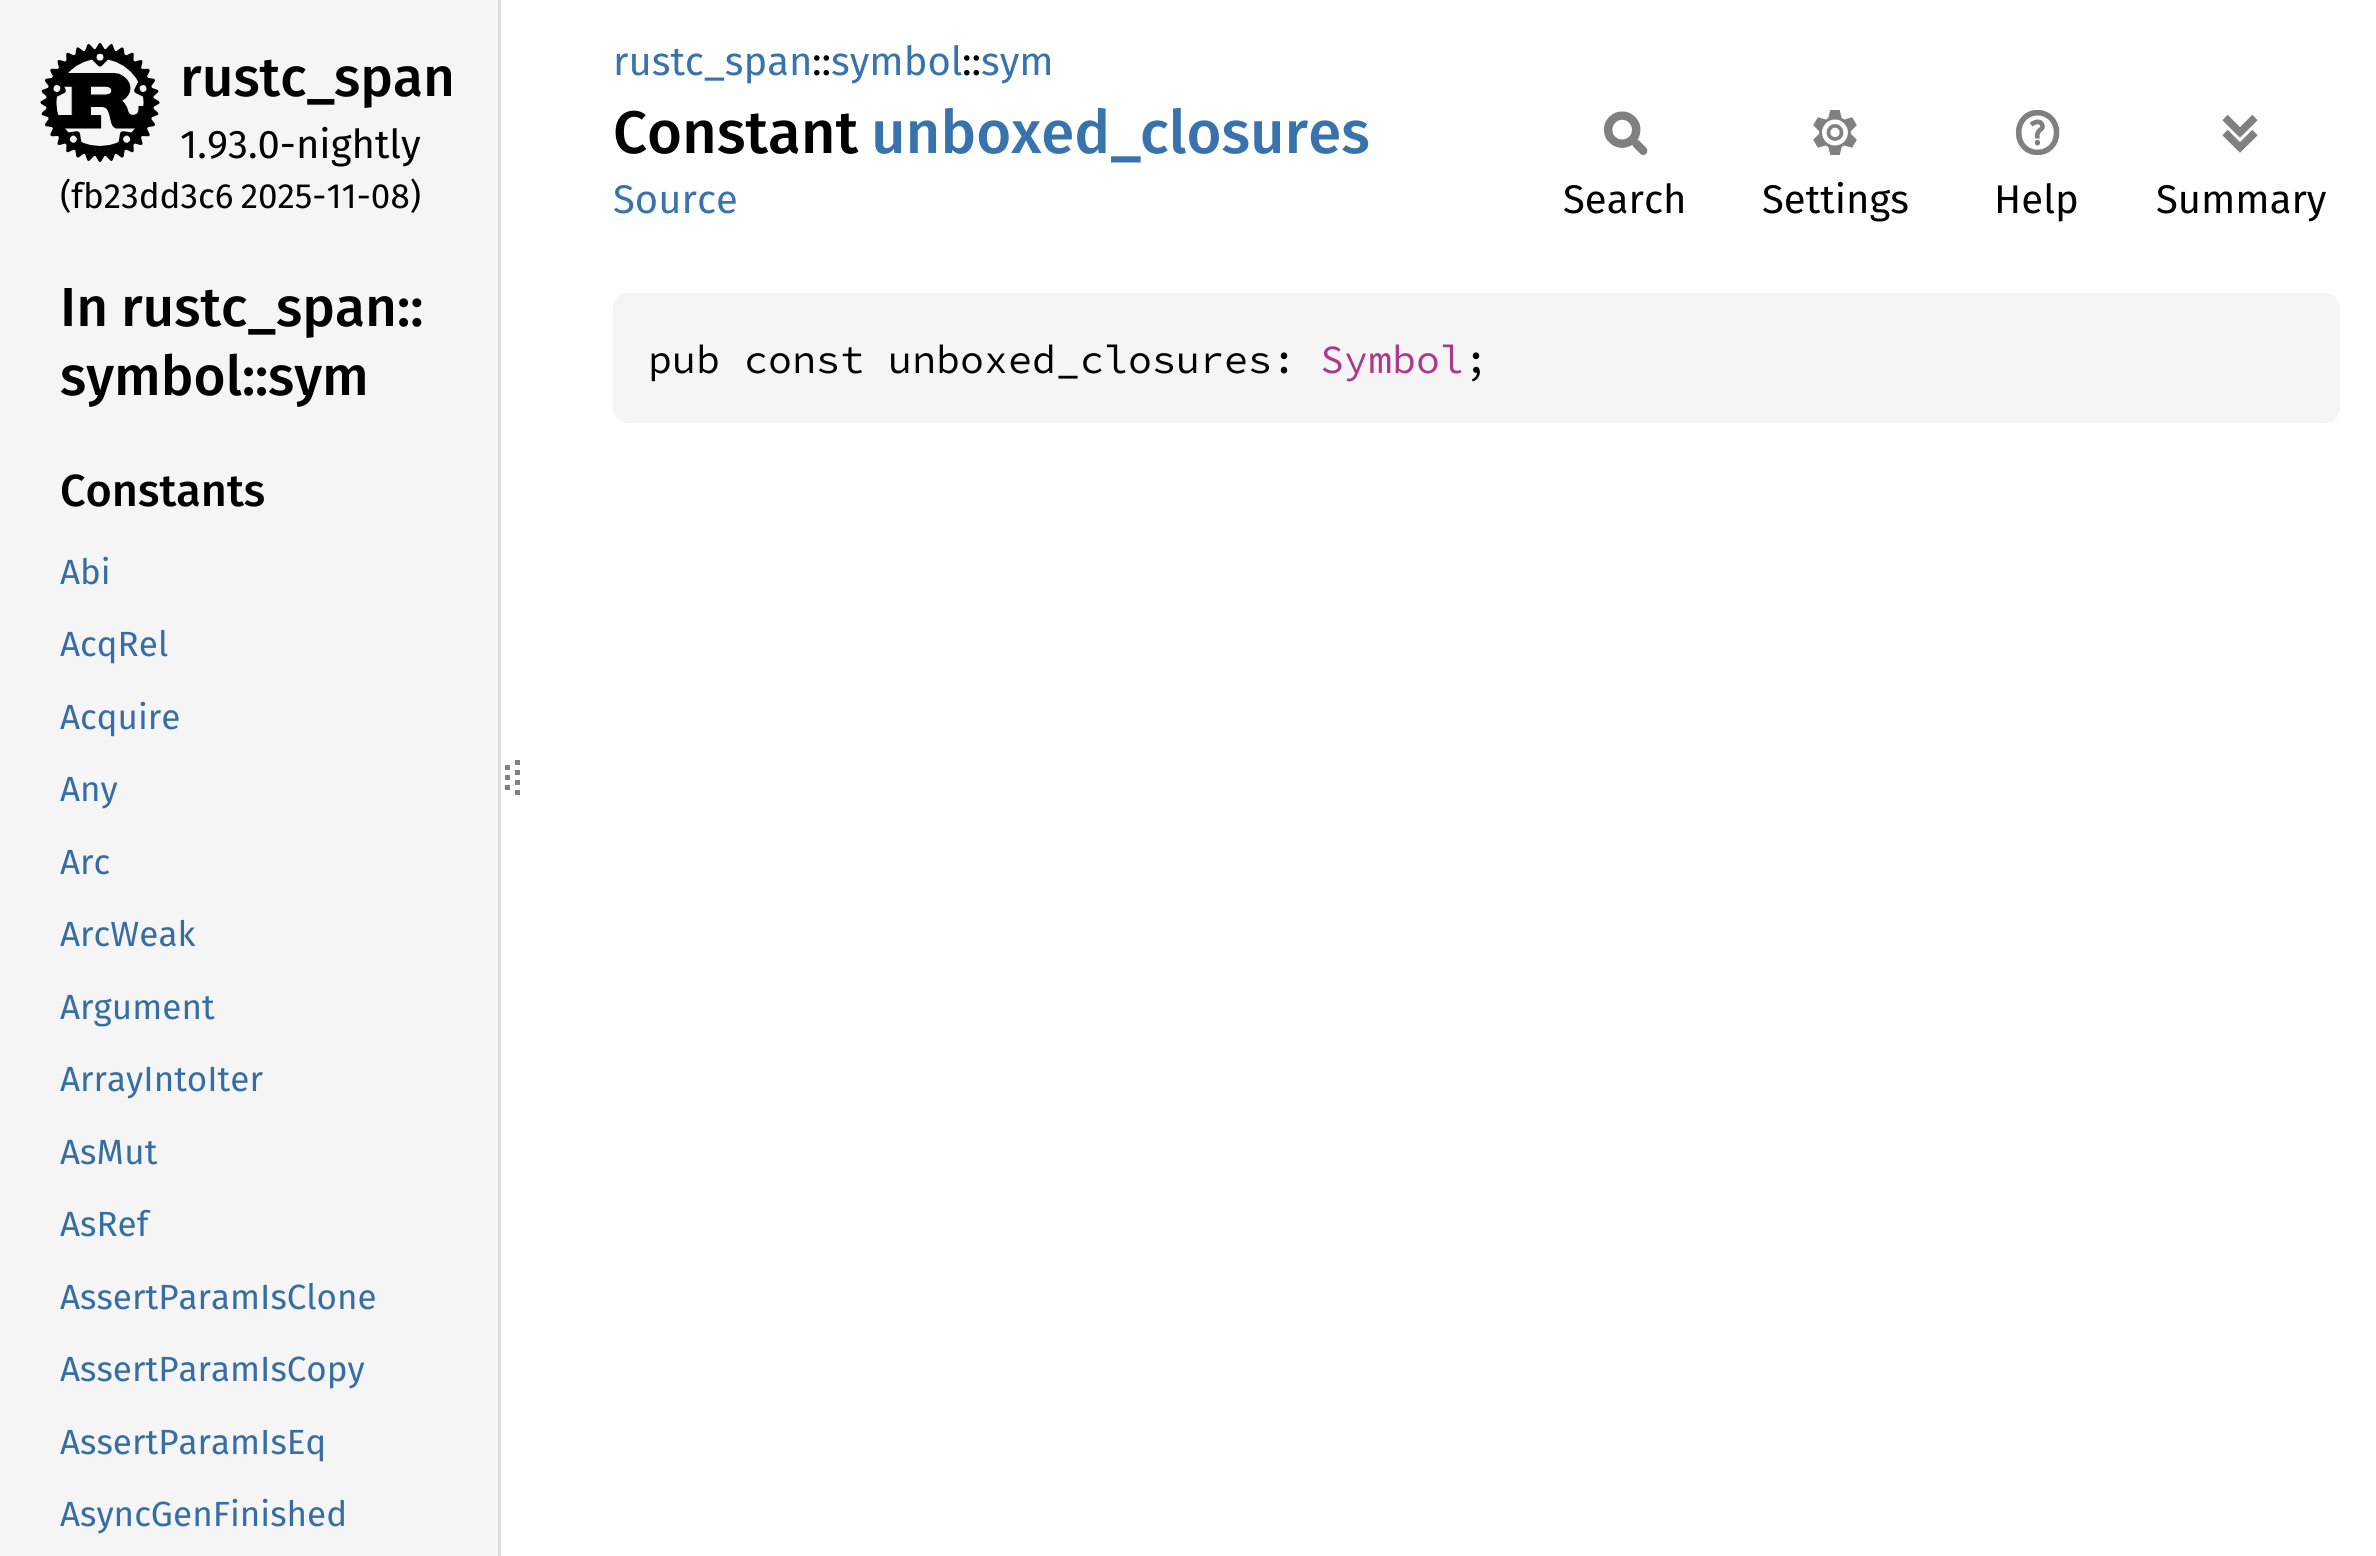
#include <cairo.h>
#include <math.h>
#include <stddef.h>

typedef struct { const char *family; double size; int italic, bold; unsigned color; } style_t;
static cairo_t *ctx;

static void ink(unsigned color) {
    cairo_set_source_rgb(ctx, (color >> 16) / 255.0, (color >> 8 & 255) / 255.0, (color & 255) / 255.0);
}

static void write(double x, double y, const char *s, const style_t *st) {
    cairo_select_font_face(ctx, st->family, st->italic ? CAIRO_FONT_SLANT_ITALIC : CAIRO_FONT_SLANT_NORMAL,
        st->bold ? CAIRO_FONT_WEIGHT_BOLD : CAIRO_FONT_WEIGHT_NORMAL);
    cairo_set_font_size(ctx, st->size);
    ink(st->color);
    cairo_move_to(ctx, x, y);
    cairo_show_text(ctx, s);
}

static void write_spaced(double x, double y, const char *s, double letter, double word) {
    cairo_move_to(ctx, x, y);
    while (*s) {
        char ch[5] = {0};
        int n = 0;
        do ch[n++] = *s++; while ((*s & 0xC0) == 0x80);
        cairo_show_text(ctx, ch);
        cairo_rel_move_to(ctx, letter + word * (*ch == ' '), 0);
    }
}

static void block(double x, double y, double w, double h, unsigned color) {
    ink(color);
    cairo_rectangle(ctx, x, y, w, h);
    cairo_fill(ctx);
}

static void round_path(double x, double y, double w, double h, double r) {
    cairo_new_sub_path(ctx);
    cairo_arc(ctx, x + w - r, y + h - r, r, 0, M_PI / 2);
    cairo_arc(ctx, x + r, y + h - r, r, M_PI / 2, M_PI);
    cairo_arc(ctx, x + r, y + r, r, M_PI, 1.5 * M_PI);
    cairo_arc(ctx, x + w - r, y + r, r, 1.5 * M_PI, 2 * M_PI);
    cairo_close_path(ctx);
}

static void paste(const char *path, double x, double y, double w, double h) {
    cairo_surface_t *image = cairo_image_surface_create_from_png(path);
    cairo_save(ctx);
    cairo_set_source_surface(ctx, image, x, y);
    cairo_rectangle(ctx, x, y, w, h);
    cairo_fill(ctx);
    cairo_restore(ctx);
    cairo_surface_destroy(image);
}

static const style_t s1 = {"Fira Sans Medium", 55, 0, 0, 0x000000};
static const style_t s2 = {"Fira Sans", 40, 0, 0, 0x000000};
static const style_t s3 = {"Fira Sans Medium", 45, 0, 0, 0x000000};
static const style_t s4 = {"Fira Sans", 35, 0, 0, 0x356da4};
static const style_t s5 = {"Fira Sans", 40, 0, 0, 0x3873ad};
static const style_t s6 = {"Fira Sans Medium", 60, 0, 0, 0x000000};
static const style_t s7 = {"Fira Sans Medium", 60, 0, 0, 0x3873ad};
static const style_t s8 = {"Source Code Pro", 40, 0, 0, 0x000000};
static const style_t s9 = {"Source Code Pro", 40, 0, 0, 0xad378a};

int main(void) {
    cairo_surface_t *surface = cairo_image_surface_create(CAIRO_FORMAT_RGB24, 2376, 1556);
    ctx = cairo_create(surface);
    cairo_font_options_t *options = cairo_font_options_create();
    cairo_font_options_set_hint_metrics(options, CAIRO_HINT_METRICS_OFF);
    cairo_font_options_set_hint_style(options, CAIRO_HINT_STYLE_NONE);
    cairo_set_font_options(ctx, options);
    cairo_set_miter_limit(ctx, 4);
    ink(0xffffff);
    cairo_paint(ctx);
    block(0, 0, 498, 1556, 0xf5f5f5);
    block(498, 0, 3, 1556, 0xdddddd);
    paste("pic1.png", 40, 43, 120, 119);
    write(180, 96, "rustc_", &s1);
    write(334, 96, "span", &s1);
    write(180, 158, "1.93.0-nightly", &s2);
    cairo_set_font_size(ctx, 35);
    write_spaced(60, 208, "(fb23dd3c6 2025-11-08)", 0, -2);
    cairo_select_font_face(ctx, "Fira Sans Medium", CAIRO_FONT_SLANT_NORMAL, CAIRO_FONT_WEIGHT_NORMAL);
    cairo_set_font_size(ctx, 55);
    write_spaced(60, 326, "In rustc_", 0, -1);
    write(276, 326, "span::", &s1);
    write(60, 395, "symbol::", &s1);
    write(268, 395, "sym", &s1);
    write(60, 506, "Constants", &s3);
    write(60, 584, "Abi", &s4);
    write(60, 656, "AcqRel", &s4);
    write(60, 729, "Acquire", &s4);
    write(60, 801, "Any", &s4);
    write(60, 874, "Arc", &s4);
    write(60, 946, "ArcWeak", &s4);
    write(60, 1019, "Argument", &s4);
    write(60, 1091, "ArrayIntoIter", &s4);
    write(60, 1164, "AsMut", &s4);
    write(60, 1236, "AsRef", &s4);
    write(60, 1309, "AssertParamIsClone", &s4);
    write(60, 1381, "AssertParamIsCopy", &s4);
    write(60, 1454, "AssertParamIsEq", &s4);
    write(60, 1526, "AsyncGenFinished", &s4);
    cairo_new_path(ctx);
    cairo_move_to(ctx, 507.5, 765);
    cairo_line_to(ctx, 507.5, 770);
    cairo_move_to(ctx, 507.5, 775);
    cairo_line_to(ctx, 507.5, 780);
    cairo_move_to(ctx, 507.5, 785);
    cairo_line_to(ctx, 507.5, 790);
    ink(0x808080);
    cairo_set_line_width(ctx, 5);
    cairo_stroke(ctx);
    cairo_new_path(ctx);
    cairo_move_to(ctx, 517.5, 760);
    cairo_line_to(ctx, 517.5, 800);
    cairo_set_dash(ctx, (double[]){5, 5}, 2, 0);
    cairo_stroke(ctx);
    write(613, 75, "rustc_span", &s5);
    write(812, 75, "::", &s2);
    write(831, 75, "symbol", &s5);
    write(962, 75, "::", &s2);
    write(981, 75, "sym", &s5);
    write(613, 153, "Constant", &s6);
    write(871, 153, "unboxed_", &s7);
    write(1140, 153, "closures", &s7);
    write(613, 213, "Source", &s5);
    paste("pic2.png", 1603, 111, 45, 44);
    write(1563, 213, "Search", &s2);
    paste("pic3.png", 1813, 110, 44, 45);
    write(1762, 213, "Settings", &s2);
    paste("pic4.png", 2015, 110, 45, 45);
    write(1994, 213, "Help", &s2);
    paste("pic5.png", 2222, 114, 36, 39);
    write(2156, 213, "Summary", &s2);
    ink(0xf5f5f5);
    round_path(613, 293, 1727, 130, 15);
    cairo_fill(ctx);
    write(648, 373, "pub const unboxed_closures:", &s8);
    write(1320, 373, "Symbol", &s9);
    write(1464, 373, ";", &s8);
    cairo_surface_write_to_png(surface, "screenshot.png");
    cairo_font_options_destroy(options);
    cairo_destroy(ctx);
    cairo_surface_destroy(surface);
    return 0;
}
